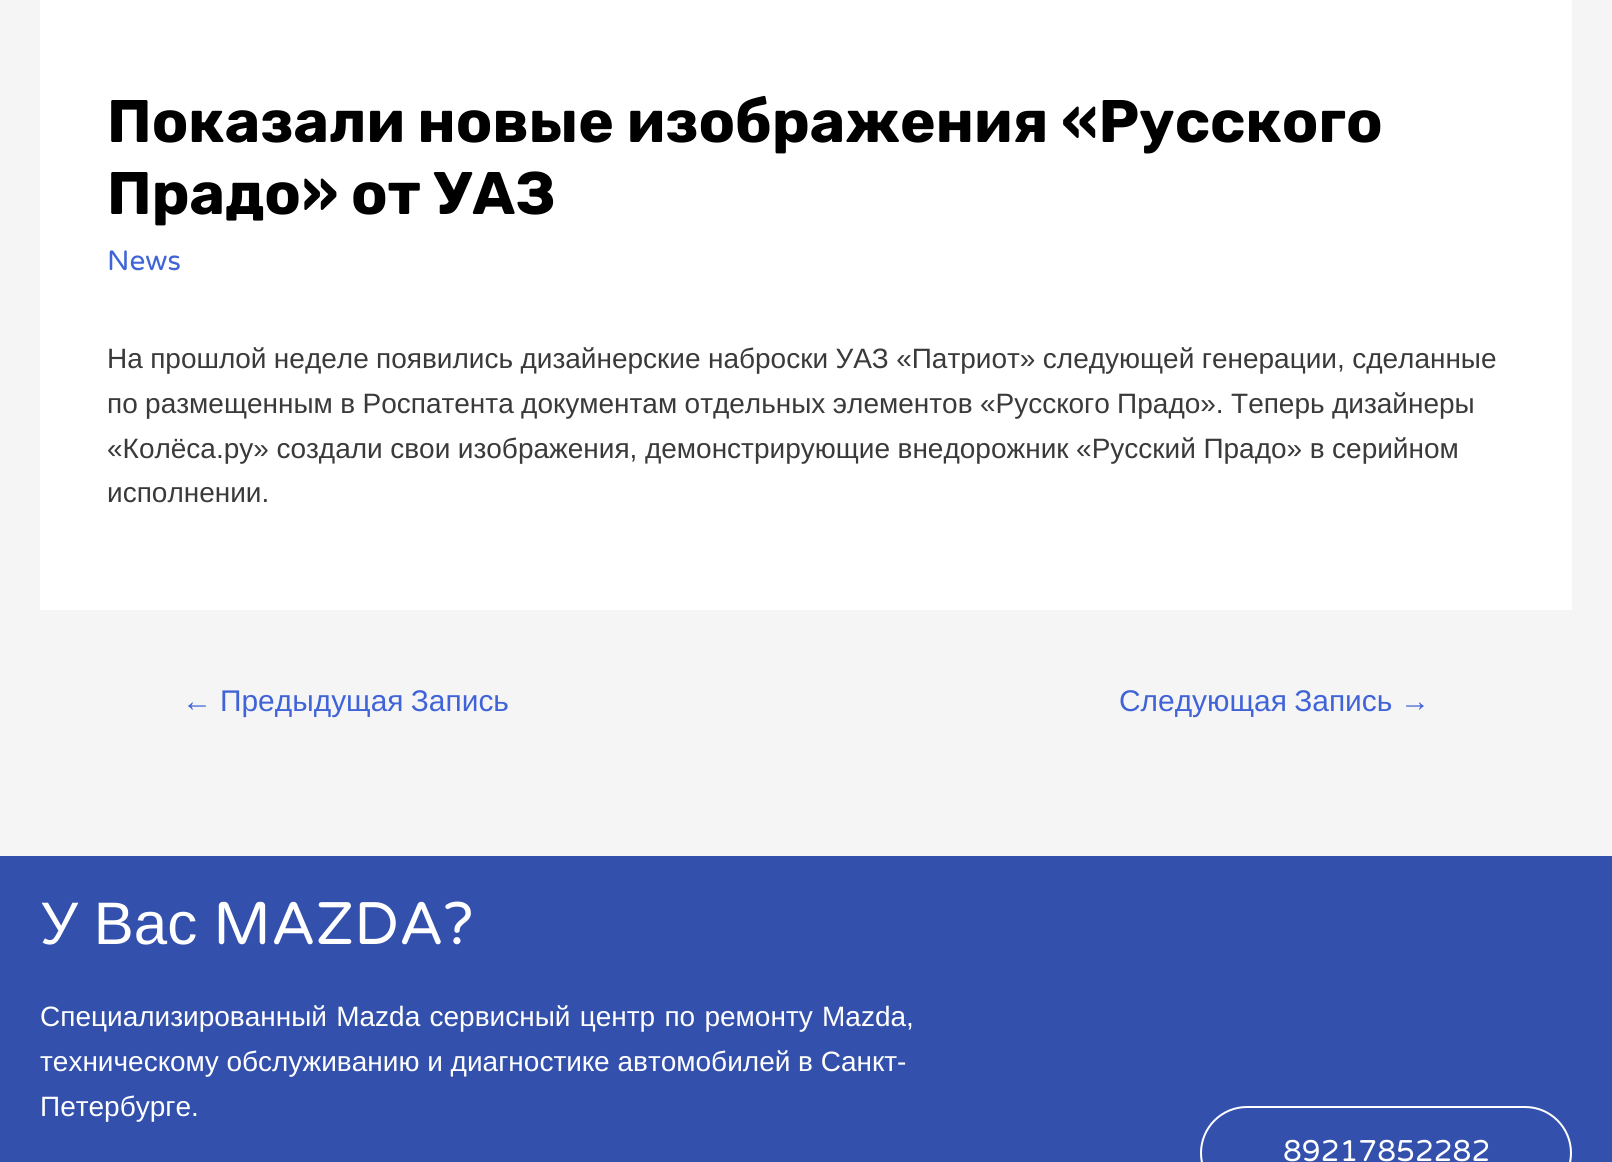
#include <cairo.h>
#include <math.h>
#include <stddef.h>

typedef struct { const char *family; double size; int italic, bold; unsigned color; } style_t;
static cairo_t *ctx;

static void ink(unsigned color) {
    cairo_set_source_rgb(ctx, (color >> 16) / 255.0, (color >> 8 & 255) / 255.0, (color & 255) / 255.0);
}

static void write(double x, double y, const char *s, const style_t *st) {
    cairo_select_font_face(ctx, st->family, st->italic ? CAIRO_FONT_SLANT_ITALIC : CAIRO_FONT_SLANT_NORMAL,
        st->bold ? CAIRO_FONT_WEIGHT_BOLD : CAIRO_FONT_WEIGHT_NORMAL);
    cairo_set_font_size(ctx, st->size);
    ink(st->color);
    cairo_move_to(ctx, x, y);
    cairo_show_text(ctx, s);
}

static void write_spaced(double x, double y, const char *s, double letter, double word) {
    cairo_move_to(ctx, x, y);
    while (*s) {
        char ch[5] = {0};
        int n = 0;
        do ch[n++] = *s++; while ((*s & 0xC0) == 0x80);
        cairo_show_text(ctx, ch);
        cairo_rel_move_to(ctx, letter + word * (*ch == ' '), 0);
    }
}

static void block(double x, double y, double w, double h, unsigned color) {
    ink(color);
    cairo_rectangle(ctx, x, y, w, h);
    cairo_fill(ctx);
}

static void round_path(double x, double y, double w, double h, double r) {
    cairo_new_sub_path(ctx);
    cairo_arc(ctx, x + w - r, y + h - r, r, 0, M_PI / 2);
    cairo_arc(ctx, x + r, y + h - r, r, M_PI / 2, M_PI);
    cairo_arc(ctx, x + r, y + r, r, M_PI, 1.5 * M_PI);
    cairo_arc(ctx, x + w - r, y + r, r, 1.5 * M_PI, 2 * M_PI);
    cairo_close_path(ctx);
}

static const style_t s1 = {"Rubik Light", 60, 0, 0, 0x000000};
static const style_t s2 = {"Varela Round", 28, 0, 0, 0x4064d7};
static const style_t s3 = {"Liberation Sans", 28, 0, 0, 0x3a3a3a};
static const style_t s4 = {"Liberation Sans", 29.9, 0, 0, 0x4064d7};
static const style_t s5 = {"Varela Round", 60, 0, 0, 0xffffff};
static const style_t s6 = {"Liberation Sans", 28, 0, 0, 0xffffff};
static const style_t s7 = {"Varela Round", 30, 0, 0, 0xffffff};

int main(void) {
    cairo_surface_t *surface = cairo_image_surface_create(CAIRO_FORMAT_RGB24, 1612, 1162);
    ctx = cairo_create(surface);
    cairo_font_options_t *options = cairo_font_options_create();
    cairo_font_options_set_hint_metrics(options, CAIRO_HINT_METRICS_OFF);
    cairo_font_options_set_hint_style(options, CAIRO_HINT_STYLE_NONE);
    cairo_set_font_options(ctx, options);
    cairo_set_miter_limit(ctx, 4);
    ink(0xf5f5f5);
    cairo_paint(ctx);
    block(40, 0, 1532, 610, 0xffffff);
    write(107, 142, "Показали новые изображения «Русского", &s1);
    write(107, 214, "Прадо» от УАЗ", &s1);
    write(107, 270, "News", &s2);
    cairo_select_font_face(ctx, "Liberation Sans", CAIRO_FONT_SLANT_NORMAL, CAIRO_FONT_WEIGHT_NORMAL);
    ink(0x3a3a3a);
    write_spaced(107, 368, "На прошлой неделе появились дизайнерские наброски УАЗ «Патриот» следующей генерации, сделанные", 0, -0.4);
    write_spaced(107, 413, "по размещенным в Роспатента документам отдельных элементов «Русского Прадо». Теперь дизайнеры", 0, -0.4);
    write_spaced(107, 458, "«Колёса.ру» создали свои изображения, демонстрирующие внедорожник «Русский Прадо» в серийном", 0, -0.25);
    write(107, 502, "исполнении.", &s3);
    write(182, 711, "←", &s4);
    write_spaced(220, 711, "Предыдущая Запись", 0, -1);
    write_spaced(1119, 711, "Следующая Запись", 0, -1);
    write(1400, 711, "→", &s4);
    block(0, 856, 1612, 306, 0x3350ad);
    cairo_set_font_size(ctx, 60);
    ink(0xffffff);
    write_spaced(40, 944, "У Вас", 0, -1);
    write(213, 944, "MAZDA?", &s5);
    cairo_select_font_face(ctx, "Liberation Sans", CAIRO_FONT_SLANT_NORMAL, CAIRO_FONT_WEIGHT_NORMAL);
    cairo_set_font_size(ctx, 28);
    write_spaced(40, 1026, "Специализированный Mazda сервисный центр по ремонту Mazda,", 0, 1.5);
    write(40, 1071, "техническому обслуживанию и диагностике автомобилей в Санкт-", &s6);
    write(40, 1116, "Петербурге.", &s6);
    round_path(1201, 1107, 370, 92, 46);
    cairo_stroke(ctx);
    write(1283, 1161, "89217852282", &s7);
    cairo_surface_write_to_png(surface, "screenshot.png");
    cairo_font_options_destroy(options);
    cairo_destroy(ctx);
    cairo_surface_destroy(surface);
    return 0;
}
